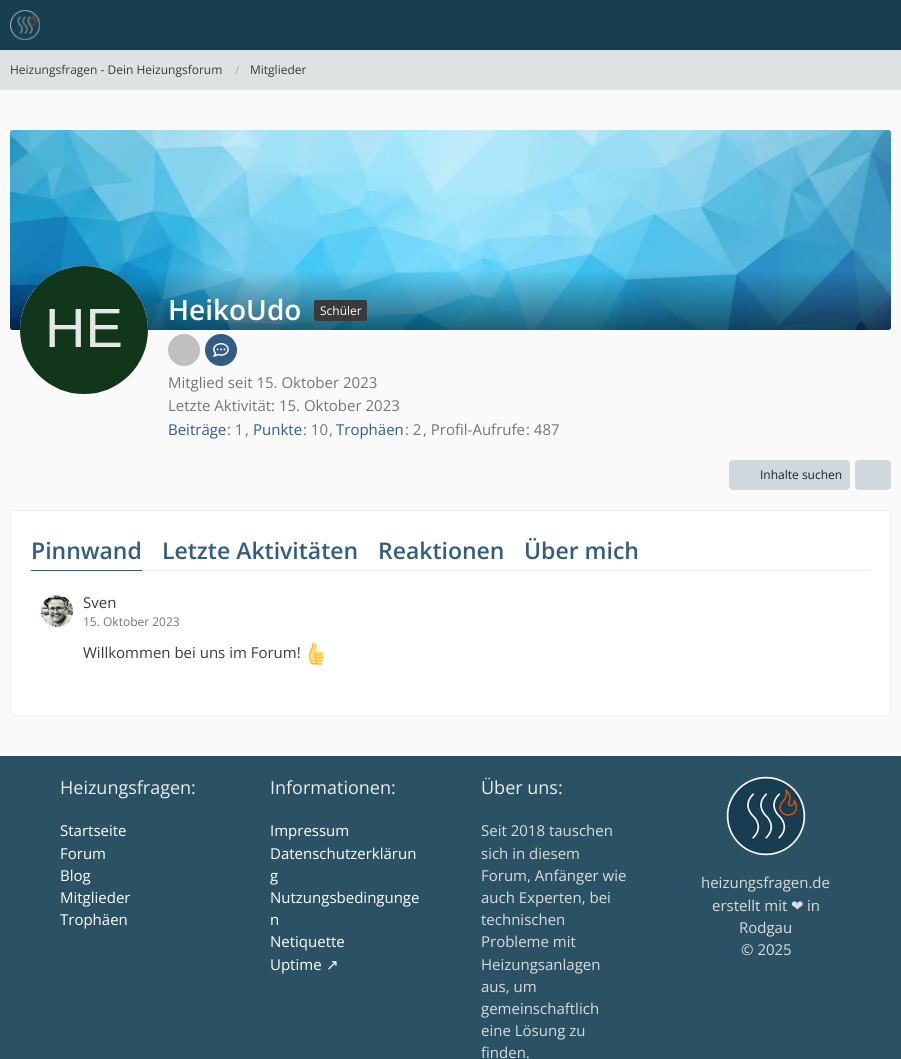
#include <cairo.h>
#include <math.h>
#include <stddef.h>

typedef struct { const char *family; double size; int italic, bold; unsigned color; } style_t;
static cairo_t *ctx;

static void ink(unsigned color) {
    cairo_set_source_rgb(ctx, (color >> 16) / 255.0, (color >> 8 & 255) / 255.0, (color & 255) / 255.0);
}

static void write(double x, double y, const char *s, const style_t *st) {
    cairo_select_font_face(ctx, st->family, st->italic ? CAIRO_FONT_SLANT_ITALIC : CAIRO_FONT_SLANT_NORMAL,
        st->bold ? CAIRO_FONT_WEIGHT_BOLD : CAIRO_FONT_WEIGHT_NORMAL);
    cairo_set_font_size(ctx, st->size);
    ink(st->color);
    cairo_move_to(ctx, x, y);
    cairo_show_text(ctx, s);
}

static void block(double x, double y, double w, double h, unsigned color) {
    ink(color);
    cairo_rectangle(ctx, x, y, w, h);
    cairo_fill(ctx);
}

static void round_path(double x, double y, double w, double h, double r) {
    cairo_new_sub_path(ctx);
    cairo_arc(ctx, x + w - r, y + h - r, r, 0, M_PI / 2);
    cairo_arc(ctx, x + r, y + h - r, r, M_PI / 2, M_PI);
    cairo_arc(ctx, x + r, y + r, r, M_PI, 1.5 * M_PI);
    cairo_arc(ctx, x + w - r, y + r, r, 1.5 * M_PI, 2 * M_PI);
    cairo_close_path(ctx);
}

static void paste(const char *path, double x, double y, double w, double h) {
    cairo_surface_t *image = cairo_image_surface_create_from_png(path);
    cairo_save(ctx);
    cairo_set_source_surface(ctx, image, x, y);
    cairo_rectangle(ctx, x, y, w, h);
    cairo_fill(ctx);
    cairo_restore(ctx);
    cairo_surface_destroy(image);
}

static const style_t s1 = {"Open Sans", 12, 0, 0, 0x3a3a3d};
static const style_t s2 = {"Open Sans", 12, 0, 0, 0xaaaaaa};
static const style_t s3 = {"Open Sans SemiBold", 28, 0, 0, 0xffffff};
static const style_t s4 = {"Open Sans", 12, 0, 0, 0xffffff};
static const style_t s5 = {"Open Sans", 15, 0, 0, 0x71757a};
static const style_t s6 = {"Open Sans", 15, 0, 0, 0x325c84};
static const style_t s7 = {"Open Sans", 12, 0, 0, 0x212121};
static const style_t s8 = {"Open Sans SemiBold", 23, 0, 0, 0x325c84};
static const style_t s9 = {"Open Sans", 15, 0, 0, 0x3a3a3d};
static const style_t s10 = {"Open Sans", 12, 0, 0, 0x71757a};
static const style_t s11 = {"Open Sans", 18, 0, 0, 0xe9ebec};
static const style_t s12 = {"Open Sans", 15, 0, 0, 0xffffff};
static const style_t s13 = {"DejaVu Sans", 15, 0, 0, 0xffffff};
static const style_t s14 = {"Open Sans", 15, 0, 0, 0xd9dcde};
static const style_t s15 = {"DejaVu Sans", 15, 0, 0, 0xd9dcde};

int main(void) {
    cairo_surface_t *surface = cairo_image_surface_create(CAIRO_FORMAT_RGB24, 901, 1059);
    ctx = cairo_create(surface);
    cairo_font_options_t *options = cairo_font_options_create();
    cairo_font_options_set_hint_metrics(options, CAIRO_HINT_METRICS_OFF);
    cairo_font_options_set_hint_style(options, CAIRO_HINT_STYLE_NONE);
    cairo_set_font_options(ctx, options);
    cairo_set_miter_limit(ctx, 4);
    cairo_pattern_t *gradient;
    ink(0xfafafa);
    cairo_paint(ctx);
    block(0, 0, 901, 50, 0x173e50);
    paste("pic1.png", 10, 10, 30, 30);
    block(0, 50, 901, 40, 0xdde2e3);
    write(10, 74, "Heizungsfragen - Dein Heizungsforum", &s1);
    write(235, 74, "/", &s2);
    write(250, 74, "Mitglieder", &s1);
    paste("pic2.png", 10, 130, 881, 200);
    gradient = cairo_pattern_create_linear(451, 130, 451, 330);
    cairo_pattern_add_color_stop_rgba(gradient, 0.7, 0, 0, 0, 0);
    cairo_pattern_add_color_stop_rgba(gradient, 1, 0, 0, 0, 0.5);
    cairo_set_source(ctx, gradient);
    cairo_pattern_destroy(gradient);
    cairo_new_path(ctx);
    cairo_move_to(ctx, 10, 130);
    cairo_line_to(ctx, 891, 130);
    cairo_line_to(ctx, 891, 327);
    cairo_curve_to(ctx, 891, 328.5, 889.5, 330, 888, 330);
    cairo_line_to(ctx, 13, 330);
    cairo_curve_to(ctx, 11.5, 330, 10, 328.5, 10, 327);
    cairo_close_path(ctx);
    cairo_fill(ctx);
    ink(0xffffff);
    cairo_arc(ctx, 84, 330, 64, 0, 2 * M_PI);
    cairo_fill(ctx);
    paste("pic3.png", 20, 266, 128, 128);
    write(168, 320, "HeikoUdo", &s3);
    ink(0x3a3a3d);
    round_path(314, 300, 53, 21, 2);
    cairo_fill(ctx);
    write(320, 315, "Schüler", &s4);
    ink(0xc0c0c0);
    cairo_new_path(ctx);
    cairo_arc(ctx, 184, 350, 16, 0, 2 * M_PI);
    cairo_fill(ctx);
    ink(0x325c84);
    cairo_arc(ctx, 221, 350, 16, 0, 2 * M_PI);
    cairo_fill(ctx);
    paste("pic4.png", 213, 343, 16, 14);
    write(168, 388, "Mitglied seit 15. Oktober 2023", &s5);
    write(168, 411, "Letzte Aktivität: 15. Oktober 2023", &s5);
    write(168, 435, "Beiträge", &s6);
    write(227, 435, ": 1", &s5);
    write(245, 435, ",", &s5);
    write(253, 435, "Punkte", &s6);
    write(303, 435, ": 10", &s5);
    write(329, 435, ",", &s5);
    write(336, 435, "Trophäen", &s6);
    write(405, 435, ": 2", &s5);
    write(423, 435, ", Profil-Aufrufe", &s5);
    write(526, 435, ": 487", &s5);
    ink(0xcfd8dc);
    round_path(729, 460, 121, 30, 4);
    cairo_fill(ctx);
    write(760, 479, "Inhalte suchen", &s7);
    ink(0xcfd8dc);
    round_path(855, 460, 36, 30, 4);
    cairo_fill(ctx);
    ink(0xffffff);
    round_path(10.5, 510.5, 880, 205, 3.5);
    cairo_fill_preserve(ctx);
    ink(0xecf1f7);
    cairo_set_line_width(ctx, 1);
    cairo_stroke(ctx);
    block(142, 570, 728, 1, 0xecf1f7);
    write(31, 559, "Pinnwand", &s8);
    block(31, 570, 111, 1, 0x325c84);
    write(162, 559, "Letzte Aktivitäten", &s8);
    write(378, 559, "Reaktionen", &s8);
    write(524, 559, "Über mich", &s8);
    paste("pic5.png", 41, 595, 32, 32);
    write(83, 608, "Sven", &s9);
    write(83, 626, "15. Oktober 2023", &s10);
    write(83, 658, "Willkommen bei uns im Forum!", &s9);
    paste("pic6.png", 309, 642, 15, 23);
    block(0, 756, 901, 303, 0x2b5264);
    write(60, 794, "Heizungsfragen:", &s11);
    write(60, 836, "Startseite", &s12);
    write(60, 859, "Forum", &s12);
    write(60, 881, "Blog", &s12);
    write(60, 903, "Mitglieder", &s12);
    write(60, 925, "Trophäen", &s12);
    write(270, 794, "Informationen:", &s11);
    write(270, 836, "Impressum", &s12);
    write(270, 859, "Datenschutzerklärun", &s12);
    write(270, 881, "g", &s12);
    write(270, 903, "Nutzungsbedingunge", &s12);
    write(270, 925, "n", &s12);
    write(270, 947, "Netiquette", &s12);
    write(270, 970, "Uptime", &s12);
    write(326, 970, "↗", &s13);
    write(481, 794, "Über uns:", &s11);
    write(481, 836, "Seit 2018 tauschen", &s14);
    write(481, 859, "sich in diesem", &s14);
    write(481, 881, "Forum, Anfänger wie", &s14);
    write(481, 903, "auch Experten, bei", &s14);
    write(481, 925, "technischen", &s14);
    write(481, 947, "Probleme mit", &s14);
    write(481, 970, "Heizungsanlagen", &s14);
    write(481, 992, "aus, um", &s14);
    write(481, 1014, "gemeinschaftlich", &s14);
    write(481, 1036, "eine Lösung zu", &s14);
    write(481, 1058, "finden.", &s14);
    paste("pic7.png", 726, 776, 80, 80);
    write(701, 888, "heizungsfragen.de", &s14);
    write(712, 911, "erstellt mit", &s14);
    write(791, 911, "❤", &s15);
    write(807, 911, "in", &s14);
    write(739, 933, "Rodgau", &s14);
    write(741, 955, "© 2025", &s14);
    cairo_surface_write_to_png(surface, "screenshot.png");
    cairo_font_options_destroy(options);
    cairo_destroy(ctx);
    cairo_surface_destroy(surface);
    return 0;
}
